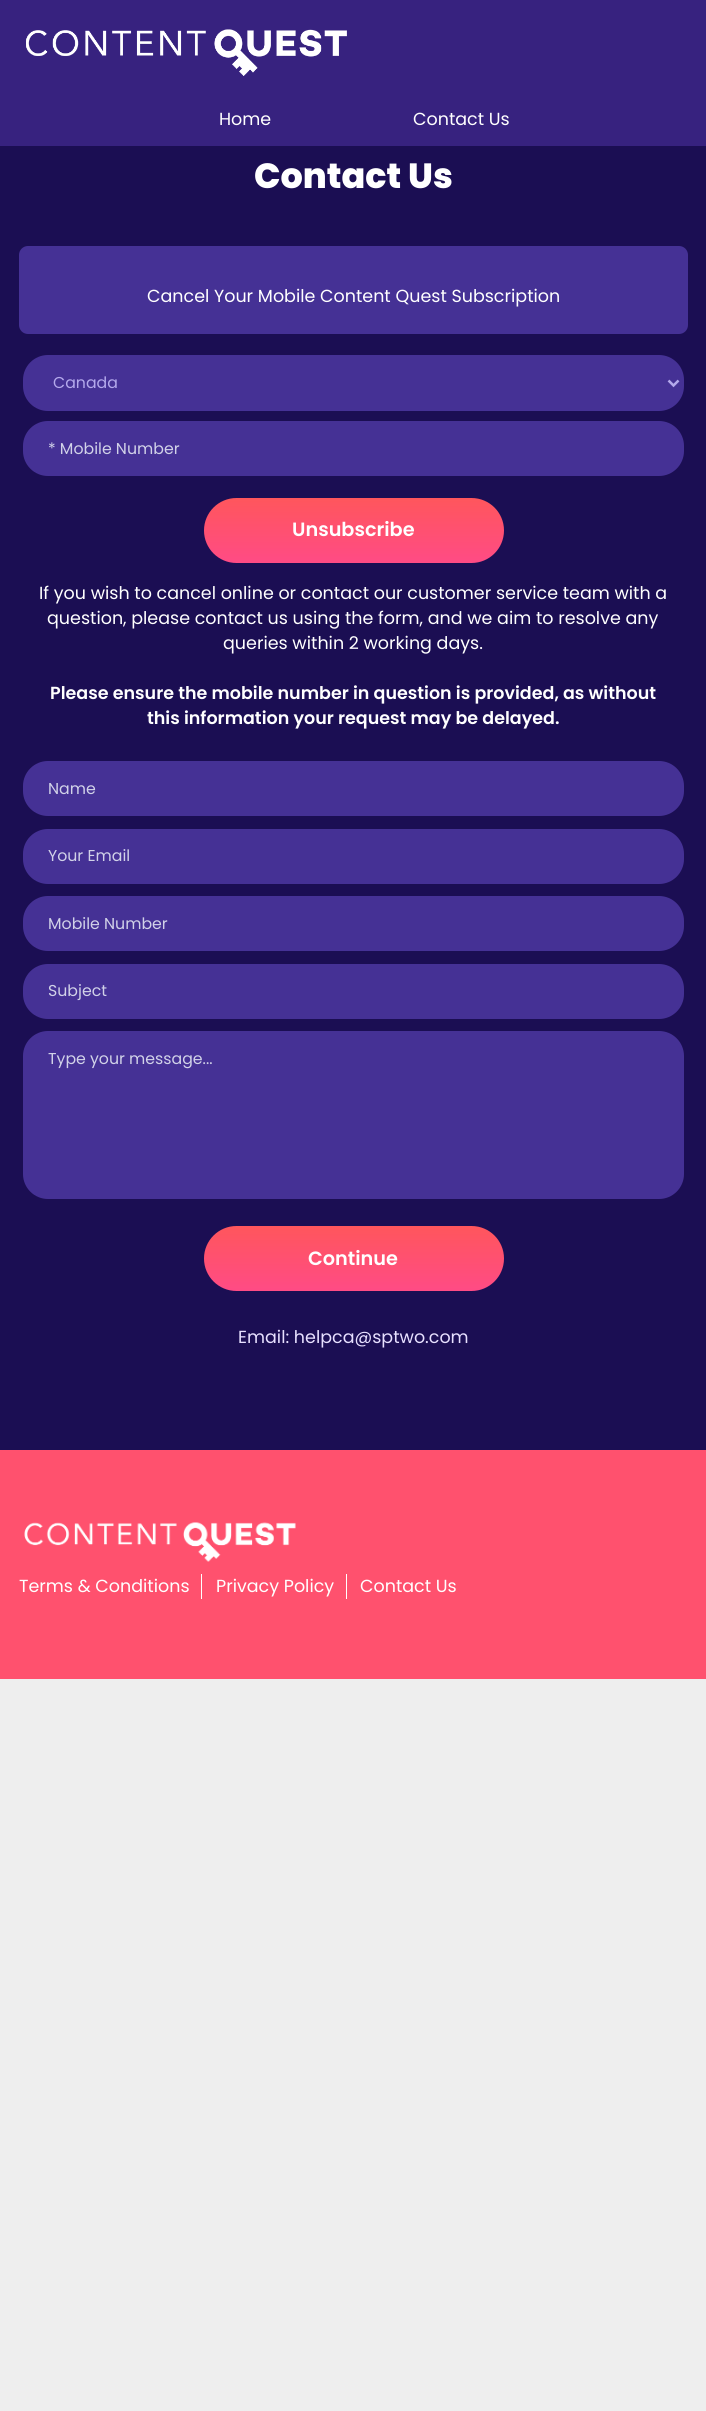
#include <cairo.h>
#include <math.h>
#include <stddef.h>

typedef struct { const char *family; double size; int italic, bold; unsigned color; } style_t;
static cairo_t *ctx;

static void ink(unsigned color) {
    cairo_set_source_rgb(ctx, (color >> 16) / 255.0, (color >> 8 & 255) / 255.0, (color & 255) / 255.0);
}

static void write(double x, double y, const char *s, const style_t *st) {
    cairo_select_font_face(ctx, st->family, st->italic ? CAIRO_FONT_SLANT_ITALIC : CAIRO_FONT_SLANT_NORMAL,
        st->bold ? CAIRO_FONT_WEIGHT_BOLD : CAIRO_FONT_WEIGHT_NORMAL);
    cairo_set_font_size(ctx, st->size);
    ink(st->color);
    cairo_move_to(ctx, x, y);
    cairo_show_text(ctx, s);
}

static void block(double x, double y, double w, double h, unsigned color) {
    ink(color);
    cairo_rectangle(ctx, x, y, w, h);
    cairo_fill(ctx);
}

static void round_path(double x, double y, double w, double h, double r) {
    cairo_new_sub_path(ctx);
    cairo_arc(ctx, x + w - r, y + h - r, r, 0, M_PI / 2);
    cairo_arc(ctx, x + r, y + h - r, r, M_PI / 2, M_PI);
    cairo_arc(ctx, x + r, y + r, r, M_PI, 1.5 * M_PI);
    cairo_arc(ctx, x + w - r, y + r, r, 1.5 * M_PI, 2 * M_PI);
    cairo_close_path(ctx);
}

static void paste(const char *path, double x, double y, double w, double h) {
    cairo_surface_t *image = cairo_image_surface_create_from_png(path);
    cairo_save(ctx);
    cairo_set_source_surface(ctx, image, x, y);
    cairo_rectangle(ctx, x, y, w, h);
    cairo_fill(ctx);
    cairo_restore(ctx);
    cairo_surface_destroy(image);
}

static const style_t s1 = {"Poppins", 17.5, 0, 0, 0xffffff};
static const style_t s2 = {"Poppins ExtraBold", 35, 0, 0, 0xffffff};
static const style_t s3 = {"Poppins", 15.75, 0, 0, 0xb4a9ec};
static const style_t s4 = {"Poppins", 15.75, 0, 0, 0xd1d2e8};
static const style_t s5 = {"Poppins SemiBold", 19.25, 0, 0, 0xffffff};
static const style_t s6 = {"Poppins SemiBold", 17.5, 0, 0, 0xffffff};
static const style_t s7 = {"Poppins", 17.5, 0, 0, 0xe7e0ff};

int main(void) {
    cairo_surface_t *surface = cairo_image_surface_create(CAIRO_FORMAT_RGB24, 706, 2411);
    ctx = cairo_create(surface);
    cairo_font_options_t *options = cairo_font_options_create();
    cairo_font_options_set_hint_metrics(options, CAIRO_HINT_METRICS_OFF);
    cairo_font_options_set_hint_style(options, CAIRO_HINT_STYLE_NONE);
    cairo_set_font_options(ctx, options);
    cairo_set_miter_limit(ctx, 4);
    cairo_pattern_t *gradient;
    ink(0xeeeeee);
    cairo_paint(ctx);
    block(0, 0, 706, 146, 0x37227f);
    paste("pic1.png", 26, 29, 321, 47);
    write(219, 125, "Home", &s1);
    write(413, 125, "Contact Us", &s1);
    block(0, 146, 706, 1304, 0x1b0e53);
    write(254, 188, "Contact Us", &s2);
    ink(0x453195);
    round_path(19, 246, 669, 88, 9);
    cairo_fill(ctx);
    write(147, 302, "Cancel Your Mobile Content Quest Subscription", &s1);
    ink(0x453195);
    round_path(23, 355, 661, 56, 25);
    cairo_fill(ctx);
    cairo_new_path(ctx);
    cairo_move_to(ctx, 668.5, 380.5);
    cairo_line_to(ctx, 673.5, 385.5);
    cairo_line_to(ctx, 678.5, 380.5);
    ink(0xb4a9ec);
    cairo_set_line_width(ctx, 2.5);
    cairo_stroke(ctx);
    write(53, 388, "Canada", &s3);
    ink(0x453195);
    round_path(23, 421, 661, 55, 25);
    cairo_fill(ctx);
    write(48, 454, "* Mobile Number", &s4);
    gradient = cairo_pattern_create_linear(354, 498, 354, 563);
    cairo_pattern_add_color_stop_rgba(gradient, 0, 1, 0.337, 0.361, 1);
    cairo_pattern_add_color_stop_rgba(gradient, 1, 1, 0.294, 0.522, 1);
    cairo_set_source(ctx, gradient);
    cairo_pattern_destroy(gradient);
    round_path(204, 498, 300, 65, 32.5);
    cairo_fill(ctx);
    write(292, 536, "Unsubscribe", &s5);
    write(39, 599, "If you wish to cancel online or contact our customer service team with a", &s1);
    write(47, 624, "question, please contact us using the form, and we aim to resolve any", &s1);
    write(223, 649, "queries within 2 working days.", &s1);
    write(50, 699, "Please ensure the mobile number in question is provided, as without", &s6);
    write(147, 724, "this information your request may be delayed.", &s6);
    ink(0x453195);
    round_path(23, 761, 661, 55, 25);
    cairo_fill(ctx);
    write(48, 794, "Name", &s4);
    ink(0x453195);
    round_path(23, 829, 661, 55, 25);
    cairo_fill(ctx);
    write(48, 861, "Your Email", &s4);
    ink(0x453195);
    round_path(23, 896, 661, 55, 25);
    cairo_fill(ctx);
    write(48, 929, "Mobile Number", &s4);
    ink(0x453195);
    round_path(23, 964, 661, 55, 25);
    cairo_fill(ctx);
    write(48, 996, "Subject", &s4);
    ink(0x453195);
    round_path(23, 1031, 661, 168, 25);
    cairo_fill(ctx);
    write(48, 1064, "Type your message...", &s4);
    gradient = cairo_pattern_create_linear(354, 1226, 354, 1291);
    cairo_pattern_add_color_stop_rgba(gradient, 0, 1, 0.337, 0.361, 1);
    cairo_pattern_add_color_stop_rgba(gradient, 1, 1, 0.294, 0.522, 1);
    cairo_set_source(ctx, gradient);
    cairo_pattern_destroy(gradient);
    round_path(204, 1226, 300, 65, 32.5);
    cairo_fill(ctx);
    write(308, 1265, "Continue", &s5);
    write(238, 1343, "Email: helpca@sptwo.com", &s7);
    block(0, 1450, 706, 229, 0xff516e);
    paste("pic2.png", 24, 1522, 272, 40);
    write(19, 1592, "Terms & Conditions", &s1);
    block(201, 1574, 1, 25, 0xffffff);
    write(216, 1592, "Privacy Policy", &s1);
    block(346, 1574, 1, 25, 0xffffff);
    write(360, 1592, "Contact Us", &s1);
    cairo_surface_write_to_png(surface, "screenshot.png");
    cairo_font_options_destroy(options);
    cairo_destroy(ctx);
    cairo_surface_destroy(surface);
    return 0;
}
